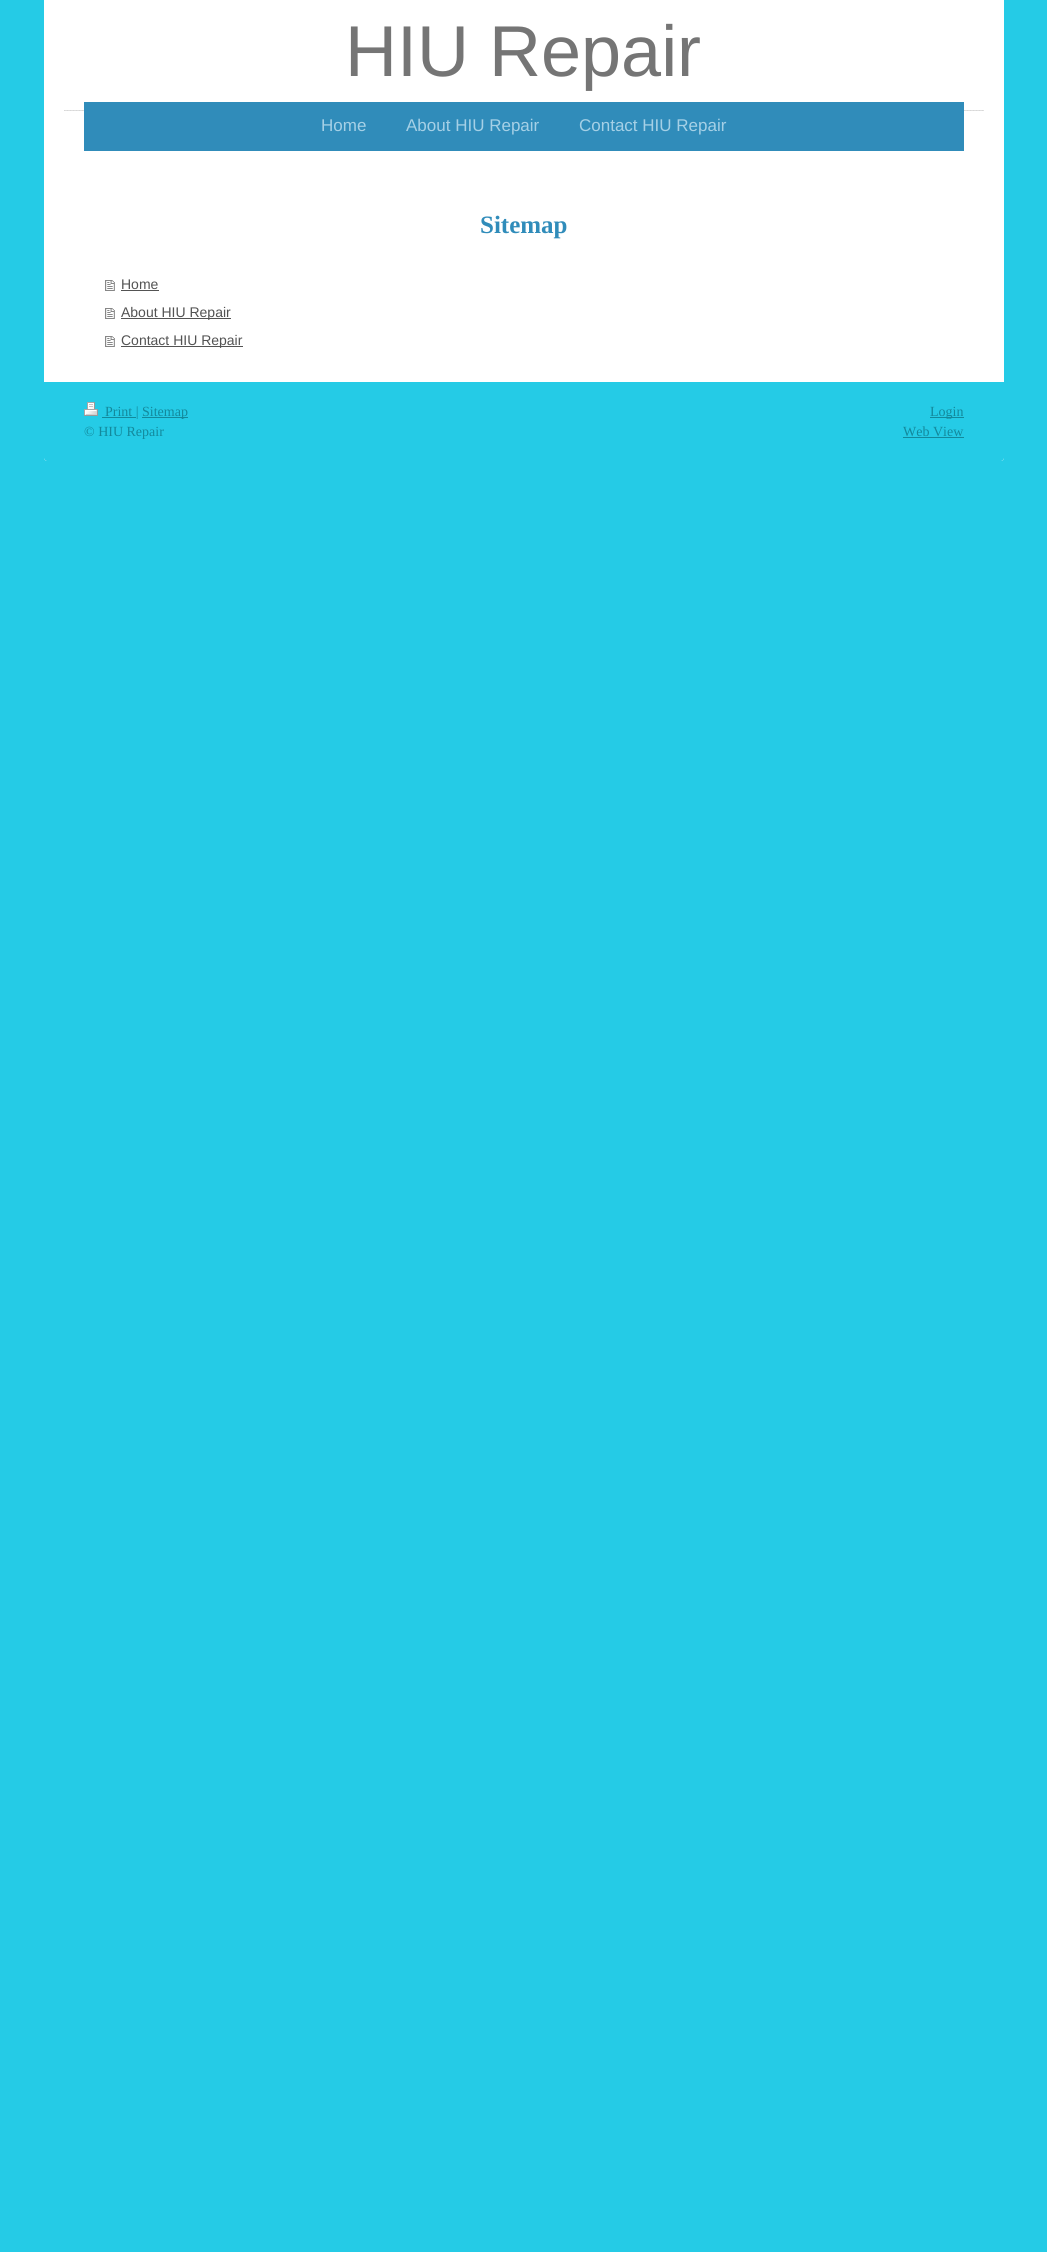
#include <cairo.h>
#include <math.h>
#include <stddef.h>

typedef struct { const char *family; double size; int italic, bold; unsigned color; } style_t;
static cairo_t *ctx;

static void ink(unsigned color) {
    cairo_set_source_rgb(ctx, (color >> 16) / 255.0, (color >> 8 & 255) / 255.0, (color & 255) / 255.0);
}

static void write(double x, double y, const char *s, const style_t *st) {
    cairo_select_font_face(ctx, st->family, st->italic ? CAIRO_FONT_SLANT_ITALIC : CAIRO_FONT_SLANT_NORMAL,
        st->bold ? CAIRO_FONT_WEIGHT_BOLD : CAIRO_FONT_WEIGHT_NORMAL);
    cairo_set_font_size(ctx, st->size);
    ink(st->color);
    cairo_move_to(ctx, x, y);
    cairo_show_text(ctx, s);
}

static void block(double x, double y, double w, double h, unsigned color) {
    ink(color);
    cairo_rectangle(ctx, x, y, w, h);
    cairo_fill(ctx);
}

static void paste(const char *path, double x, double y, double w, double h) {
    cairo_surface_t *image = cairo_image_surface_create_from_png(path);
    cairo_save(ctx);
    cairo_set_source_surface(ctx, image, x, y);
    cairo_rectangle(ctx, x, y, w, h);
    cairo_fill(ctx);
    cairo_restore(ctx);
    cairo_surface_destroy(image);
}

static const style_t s1 = {"Liberation Sans", 72, 0, 0, 0x757575};
static const style_t s2 = {"Liberation Sans", 17, 0, 0, 0xa5d0e6};
static const style_t s3 = {"Liberation Serif", 25, 0, 1, 0x308cba};
static const style_t s4 = {"Liberation Sans", 14, 0, 0, 0x535353};
static const style_t s5 = {"Liberation Serif", 14, 0, 0, 0x13899c};

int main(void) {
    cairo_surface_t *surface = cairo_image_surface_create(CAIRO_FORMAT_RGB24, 1047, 2252);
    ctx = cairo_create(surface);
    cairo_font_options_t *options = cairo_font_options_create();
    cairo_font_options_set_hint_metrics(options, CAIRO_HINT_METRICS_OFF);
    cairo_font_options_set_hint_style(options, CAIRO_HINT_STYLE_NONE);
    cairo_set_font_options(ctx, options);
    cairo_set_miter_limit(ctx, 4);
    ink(0x25cbe6);
    cairo_paint(ctx);
    ink(0xffffff);
    cairo_new_path(ctx);
    cairo_move_to(ctx, 44, 0);
    cairo_line_to(ctx, 1004, 0);
    cairo_line_to(ctx, 1004, 458);
    cairo_curve_to(ctx, 1004, 459.5, 1002.5, 461, 1001, 461);
    cairo_line_to(ctx, 47, 461);
    cairo_curve_to(ctx, 45.5, 461, 44, 459.5, 44, 458);
    cairo_close_path(ctx);
    cairo_fill(ctx);
    write(345, 76, "HIU Repair", &s1);
    block(64, 110, 920, 1, 0xeeeeee);
    paste("pic1.png", 64, 110, 920, 1);
    block(84, 102, 880, 49, 0x308cba);
    write(321, 131, "Home", &s2);
    write(406, 131, "About HIU Repair", &s2);
    write(579, 131, "Contact HIU Repair", &s2);
    write(480, 233, "Sitemap", &s3);
    paste("pic2.png", 105, 280, 10, 11);
    write(121, 289, "Home", &s4);
    block(121, 290, 38, 1, 0x535353);
    paste("pic2.png", 105, 308, 10, 11);
    block(121, 318, 110, 1, 0x535353);
    write(121, 317, "About HIU Repair", &s4);
    paste("pic2.png", 105, 336, 10, 11);
    block(121, 346, 122, 1, 0x535353);
    write(121, 345, "Contact HIU Repair", &s4);
    ink(0x25cbe6);
    cairo_new_path(ctx);
    cairo_move_to(ctx, 44, 382);
    cairo_line_to(ctx, 1004, 382);
    cairo_line_to(ctx, 1004, 458);
    cairo_curve_to(ctx, 1004, 459.5, 1002.5, 461, 1001, 461);
    cairo_line_to(ctx, 47, 461);
    cairo_curve_to(ctx, 45.5, 461, 44, 459.5, 44, 458);
    cairo_close_path(ctx);
    cairo_fill(ctx);
    paste("pic3.png", 84, 402, 14, 14);
    block(102, 417, 34, 1, 0x13899c);
    write(105, 416, "Print |", &s5);
    block(142, 417, 46, 1, 0x13899c);
    write(142, 416, "Sitemap", &s5);
    write(84, 436, "© HIU Repair", &s5);
    block(930, 417, 34, 1, 0x13899c);
    write(930, 416, "Login", &s5);
    write(903, 436, "Web View", &s5);
    block(903, 437, 61, 1, 0x13899c);
    cairo_surface_write_to_png(surface, "screenshot.png");
    cairo_font_options_destroy(options);
    cairo_destroy(ctx);
    cairo_surface_destroy(surface);
    return 0;
}
